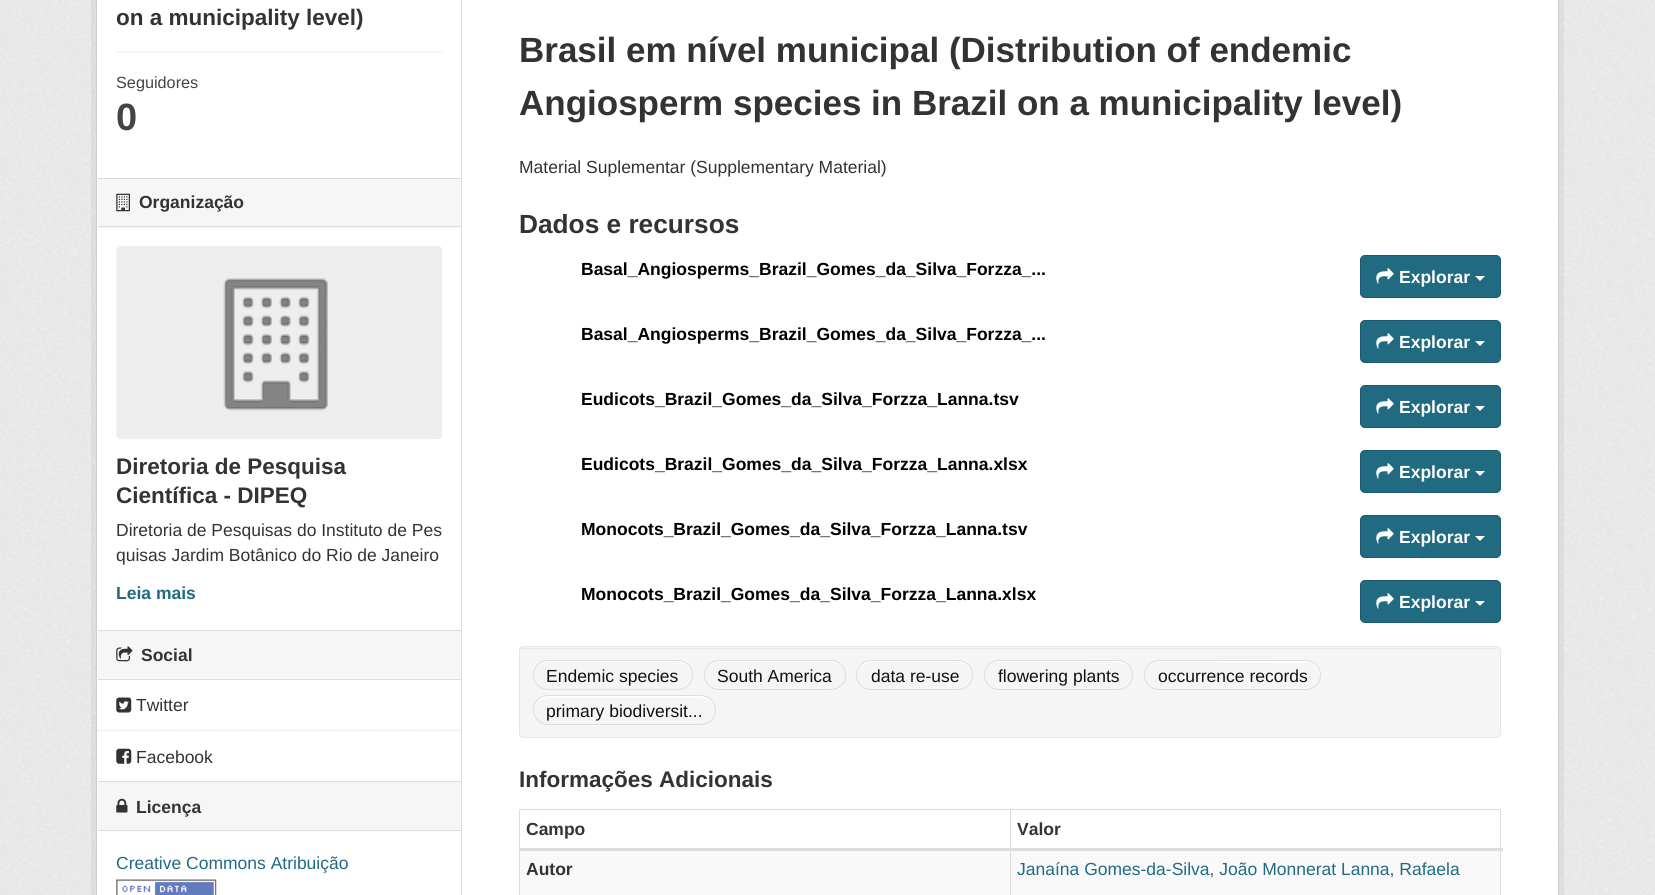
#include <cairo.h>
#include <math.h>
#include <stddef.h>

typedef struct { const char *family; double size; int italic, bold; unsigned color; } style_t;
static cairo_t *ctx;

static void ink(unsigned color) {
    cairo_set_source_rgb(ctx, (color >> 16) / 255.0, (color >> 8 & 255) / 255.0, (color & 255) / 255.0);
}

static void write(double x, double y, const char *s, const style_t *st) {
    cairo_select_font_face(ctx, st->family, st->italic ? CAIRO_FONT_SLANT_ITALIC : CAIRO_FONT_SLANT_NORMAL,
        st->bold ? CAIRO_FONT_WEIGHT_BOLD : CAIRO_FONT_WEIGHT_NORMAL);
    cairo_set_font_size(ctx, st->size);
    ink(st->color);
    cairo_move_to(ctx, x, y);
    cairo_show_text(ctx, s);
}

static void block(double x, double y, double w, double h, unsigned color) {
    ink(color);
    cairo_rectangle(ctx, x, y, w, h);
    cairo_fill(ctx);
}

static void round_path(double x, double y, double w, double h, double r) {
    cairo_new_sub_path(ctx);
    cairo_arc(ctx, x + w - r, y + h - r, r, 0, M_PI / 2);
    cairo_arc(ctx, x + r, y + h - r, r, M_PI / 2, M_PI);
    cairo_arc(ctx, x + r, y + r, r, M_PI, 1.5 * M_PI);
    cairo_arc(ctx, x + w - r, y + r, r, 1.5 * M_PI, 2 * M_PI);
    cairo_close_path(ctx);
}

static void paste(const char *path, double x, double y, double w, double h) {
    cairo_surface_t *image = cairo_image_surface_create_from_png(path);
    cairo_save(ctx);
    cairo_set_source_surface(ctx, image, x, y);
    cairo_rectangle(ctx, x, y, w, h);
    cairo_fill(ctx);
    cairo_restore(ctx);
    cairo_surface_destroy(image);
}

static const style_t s1 = {"Liberation Sans", 22.5, 0, 1, 0x333333};
static const style_t s2 = {"Liberation Sans", 16.25, 0, 0, 0x444444};
static const style_t s3 = {"Liberation Sans", 38, 0, 1, 0x444444};
static const style_t s4 = {"Liberation Sans", 17.5, 0, 1, 0x333333};
static const style_t s5 = {"Liberation Sans", 17.5, 0, 0, 0x333333};
static const style_t s6 = {"Liberation Sans", 17.5, 0, 1, 0x206b82};
static const style_t s7 = {"Liberation Sans", 17.5, 0, 0, 0x206b82};
static const style_t s8 = {"Liberation Sans", 35, 0, 1, 0x333333};
static const style_t s9 = {"Liberation Sans", 26.25, 0, 1, 0x333333};
static const style_t s10 = {"Liberation Sans", 17.5, 0, 1, 0x000000};
static const style_t s11 = {"Liberation Sans", 17.5, 0, 1, 0xffffff};
static const style_t s12 = {"Liberation Sans", 17.5, 0, 0, 0x111111};

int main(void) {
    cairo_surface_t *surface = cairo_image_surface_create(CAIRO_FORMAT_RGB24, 1655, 895);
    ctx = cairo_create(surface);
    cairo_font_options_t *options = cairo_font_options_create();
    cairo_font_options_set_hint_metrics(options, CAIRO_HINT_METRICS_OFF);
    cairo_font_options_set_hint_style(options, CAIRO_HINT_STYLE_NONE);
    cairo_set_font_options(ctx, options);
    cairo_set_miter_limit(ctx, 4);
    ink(0xeeeeee);
    cairo_paint(ctx);
    paste("pic1.png", 0, 0, 1655, 895);
    cairo_rectangle(ctx, 93.5, -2.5, 1468, 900);
    cairo_set_source_rgba(ctx, 0, 0, 0, 0.05);
    cairo_set_line_width(ctx, 5);
    cairo_stroke(ctx);
    ink(0xffffff);
    cairo_rectangle(ctx, 96.5, -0.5, 1462, 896);
    cairo_fill_preserve(ctx);
    ink(0xcccccc);
    cairo_set_line_width(ctx, 1);
    cairo_stroke(ctx);
    write(116, 25, "on a municipality level)", &s1);
    cairo_new_path(ctx);
    cairo_move_to(ctx, 116, 52);
    cairo_line_to(ctx, 442.5, 52);
    ink(0xdddddd);
    cairo_set_line_width(ctx, 1.2);
    cairo_set_dash(ctx, (double[]){1.25, 1.25}, 2, 0);
    cairo_stroke(ctx);
    write(116, 88, "Seguidores", &s2);
    write(116, 130, "0", &s3);
    block(98, 179, 363, 49, 0xf6f6f6);
    block(98, 178, 363, 1, 0xdddddd);
    block(98, 226, 363, 1, 0xdddddd);
    paste("pic2.png", 116, 193, 14, 19);
    write(139, 208, "Organização", &s4);
    paste("pic3.png", 116, 246, 327, 194);
    write(116, 474, "Diretoria de Pesquisa", &s1);
    write(116, 503, "Científica - DIPEQ", &s1);
    write(116, 536, "Diretoria de Pesquisas do Instituto de Pes", &s5);
    write(116, 561, "quisas Jardim Botânico do Rio de Janeiro", &s5);
    write(116, 599, "Leia mais", &s6);
    block(98, 631, 363, 48, 0xf6f6f6);
    block(98, 630, 363, 1, 0xdddddd);
    block(98, 679, 363, 1, 0xdddddd);
    paste("pic4.png", 116, 646, 17, 16);
    write(141, 661, "Social", &s4);
    cairo_new_path(ctx);
    cairo_move_to(ctx, 97.5, 730.5);
    cairo_line_to(ctx, 461, 730.5);
    ink(0xdddddd);
    cairo_stroke(ctx);
    paste("pic5.png", 116, 697, 16, 16);
    write(136, 711, "Twitter", &s5);
    paste("pic6.png", 116, 748, 16, 16);
    write(136, 763, "Facebook", &s5);
    block(98, 782, 363, 48, 0xf6f6f6);
    block(98, 781, 363, 1, 0xdddddd);
    block(98, 830, 363, 1, 0xdddddd);
    paste("pic7.png", 116, 798, 12, 15);
    write(136, 813, "Licença", &s4);
    write(116, 869, "Creative Commons Atribuição", &s7);
    paste("pic8.png", 116, 879, 101, 16);
    block(461, 0, 1, 895, 0xdddddd);
    write(519, 62, "Brasil em nível municipal (Distribution of endemic", &s8);
    write(519, 115, "Angiosperm species in Brazil on a municipality level)", &s8);
    write(519, 173, "Material Suplementar (Supplementary Material)", &s5);
    write(519, 233, "Dados e recursos", &s9);
    write(581, 275, "Basal_Angiosperms_Brazil_Gomes_da_Silva_Forzza_...", &s10);
    ink(0x206b82);
    round_path(1360.5, 255.5, 140, 42, 4.5);
    cairo_fill_preserve(ctx);
    ink(0x1b5a6e);
    cairo_set_line_width(ctx, 1);
    cairo_set_dash(ctx, NULL, 0, 0);
    cairo_stroke(ctx);
    paste("pic9.png", 1376, 268, 18, 16);
    write(1399, 283, "Explorar", &s11);
    cairo_new_path(ctx);
    cairo_move_to(ctx, 1475, 276);
    cairo_line_to(ctx, 1485, 276);
    cairo_line_to(ctx, 1480, 281);
    cairo_close_path(ctx);
    cairo_fill(ctx);
    write(581, 340, "Basal_Angiosperms_Brazil_Gomes_da_Silva_Forzza_...", &s10);
    ink(0x206b82);
    round_path(1360.5, 320.5, 140, 42, 4.5);
    cairo_fill_preserve(ctx);
    ink(0x1b5a6e);
    cairo_stroke(ctx);
    paste("pic9.png", 1376, 333, 18, 16);
    write(1399, 348, "Explorar", &s11);
    cairo_new_path(ctx);
    cairo_move_to(ctx, 1475, 341);
    cairo_line_to(ctx, 1485, 341);
    cairo_line_to(ctx, 1480, 346);
    cairo_close_path(ctx);
    cairo_fill(ctx);
    write(581, 405, "Eudicots_Brazil_Gomes_da_Silva_Forzza_Lanna.tsv", &s10);
    ink(0x206b82);
    round_path(1360.5, 385.5, 140, 42, 4.5);
    cairo_fill_preserve(ctx);
    ink(0x1b5a6e);
    cairo_stroke(ctx);
    paste("pic9.png", 1376, 398, 18, 16);
    write(1399, 413, "Explorar", &s11);
    cairo_new_path(ctx);
    cairo_move_to(ctx, 1475, 406);
    cairo_line_to(ctx, 1485, 406);
    cairo_line_to(ctx, 1480, 411);
    cairo_close_path(ctx);
    cairo_fill(ctx);
    write(581, 470, "Eudicots_Brazil_Gomes_da_Silva_Forzza_Lanna.xlsx", &s10);
    ink(0x206b82);
    round_path(1360.5, 450.5, 140, 42, 4.5);
    cairo_fill_preserve(ctx);
    ink(0x1b5a6e);
    cairo_stroke(ctx);
    paste("pic9.png", 1376, 463, 18, 16);
    write(1399, 478, "Explorar", &s11);
    cairo_new_path(ctx);
    cairo_move_to(ctx, 1475, 471);
    cairo_line_to(ctx, 1485, 471);
    cairo_line_to(ctx, 1480, 476);
    cairo_close_path(ctx);
    cairo_fill(ctx);
    write(581, 535, "Monocots_Brazil_Gomes_da_Silva_Forzza_Lanna.tsv", &s10);
    ink(0x206b82);
    round_path(1360.5, 515.5, 140, 42, 4.5);
    cairo_fill_preserve(ctx);
    ink(0x1b5a6e);
    cairo_stroke(ctx);
    paste("pic9.png", 1376, 528, 18, 16);
    write(1399, 543, "Explorar", &s11);
    cairo_new_path(ctx);
    cairo_move_to(ctx, 1475, 536);
    cairo_line_to(ctx, 1485, 536);
    cairo_line_to(ctx, 1480, 541);
    cairo_close_path(ctx);
    cairo_fill(ctx);
    write(581, 600, "Monocots_Brazil_Gomes_da_Silva_Forzza_Lanna.xlsx", &s10);
    ink(0x206b82);
    round_path(1360.5, 580.5, 140, 42, 4.5);
    cairo_fill_preserve(ctx);
    ink(0x1b5a6e);
    cairo_stroke(ctx);
    paste("pic9.png", 1376, 593, 18, 16);
    write(1399, 608, "Explorar", &s11);
    cairo_new_path(ctx);
    cairo_move_to(ctx, 1475, 601);
    cairo_line_to(ctx, 1485, 601);
    cairo_line_to(ctx, 1480, 606);
    cairo_close_path(ctx);
    cairo_fill(ctx);
    ink(0xf5f5f5);
    round_path(519, 646, 982, 92, 5);
    cairo_fill(ctx);
    ink(0xe9e9e9);
    cairo_new_path(ctx);
    cairo_move_to(ctx, 524, 649);
    cairo_line_to(ctx, 1496, 649);
    cairo_curve_to(ctx, 1498, 649, 1500, 650, 1500, 652);
    cairo_curve_to(ctx, 1500, 650, 1498, 648, 1496, 648);
    cairo_line_to(ctx, 524, 648);
    cairo_curve_to(ctx, 522, 648, 520, 650, 520, 652);
    cairo_curve_to(ctx, 520, 650, 522, 649, 524, 649);
    cairo_close_path(ctx);
    cairo_fill(ctx);
    round_path(519.5, 646.5, 981, 91, 4.5);
    ink(0xe3e3e3);
    cairo_stroke(ctx);
    ink(0xffffff);
    cairo_new_path(ctx);
    cairo_move_to(ctx, 548, 662);
    cairo_line_to(ctx, 678, 662);
    cairo_curve_to(ctx, 685, 662, 691, 669, 691, 676);
    cairo_curve_to(ctx, 692, 656, 666, 661, 656, 661);
    cairo_line_to(ctx, 570, 661);
    cairo_curve_to(ctx, 559, 661, 533, 656, 534, 676);
    cairo_curve_to(ctx, 534, 669, 540, 662, 548, 662);
    cairo_close_path(ctx);
    cairo_fill(ctx);
    round_path(533.5, 660.5, 159, 29, 14.5);
    ink(0xdddddd);
    cairo_stroke(ctx);
    write(546, 682, "Endemic species", &s12);
    ink(0xffffff);
    cairo_new_path(ctx);
    cairo_move_to(ctx, 719, 662);
    cairo_line_to(ctx, 831, 662);
    cairo_curve_to(ctx, 839, 662, 845, 669, 845, 676);
    cairo_curve_to(ctx, 846, 657, 823, 661, 812, 661);
    cairo_line_to(ctx, 738, 661);
    cairo_curve_to(ctx, 727, 661, 704, 657, 705, 676);
    cairo_curve_to(ctx, 705, 669, 711, 662, 719, 662);
    cairo_close_path(ctx);
    cairo_fill(ctx);
    round_path(704.5, 660.5, 141, 29, 14.5);
    ink(0xdddddd);
    cairo_stroke(ctx);
    write(717, 682, "South America", &s12);
    ink(0xffffff);
    cairo_new_path(ctx);
    cairo_move_to(ctx, 871, 662);
    cairo_line_to(ctx, 958, 662);
    cairo_curve_to(ctx, 965, 662, 971, 669, 971, 676);
    cairo_line_to(ctx, 971, 675);
    cairo_curve_to(ctx, 971, 667, 965, 661, 957, 661);
    cairo_line_to(ctx, 872, 661);
    cairo_curve_to(ctx, 864, 661, 858, 667, 858, 675);
    cairo_line_to(ctx, 858, 676);
    cairo_curve_to(ctx, 858, 669, 864, 662, 871, 662);
    cairo_close_path(ctx);
    cairo_fill(ctx);
    round_path(856.5, 660.5, 116, 29, 14.5);
    ink(0xdddddd);
    cairo_stroke(ctx);
    write(871, 682, "data re-use", &s12);
    ink(0xffffff);
    cairo_new_path(ctx);
    cairo_move_to(ctx, 999, 662);
    cairo_line_to(ctx, 1082, 662);
    cairo_curve_to(ctx, 1091, 662, 1111, 661, 1120, 663);
    cairo_curve_to(ctx, 1125, 664, 1129, 666, 1130, 671);
    cairo_curve_to(ctx, 1128, 665, 1123, 661, 1117, 661);
    cairo_line_to(ctx, 999, 661);
    cairo_curve_to(ctx, 991, 661, 985, 667, 985, 675);
    cairo_line_to(ctx, 985, 676);
    cairo_curve_to(ctx, 985, 669, 990, 662, 999, 662);
    cairo_close_path(ctx);
    cairo_fill(ctx);
    round_path(984.5, 660.5, 148, 29, 14.5);
    ink(0xdddddd);
    cairo_stroke(ctx);
    write(998, 682, "flowering plants", &s12);
    ink(0xffffff);
    cairo_new_path(ctx);
    cairo_move_to(ctx, 1159, 662);
    cairo_line_to(ctx, 1309, 663);
    cairo_curve_to(ctx, 1316, 664, 1320, 670, 1320, 676);
    cairo_curve_to(ctx, 1322, 656, 1292, 661, 1282, 661);
    cairo_line_to(ctx, 1184, 661);
    cairo_curve_to(ctx, 1173, 661, 1143, 656, 1145, 676);
    cairo_curve_to(ctx, 1145, 669, 1150, 662, 1159, 662);
    cairo_close_path(ctx);
    cairo_fill(ctx);
    round_path(1144.5, 660.5, 176, 29, 14.5);
    ink(0xdddddd);
    cairo_stroke(ctx);
    write(1158, 682, "occurrence records", &s12);
    ink(0xffffff);
    cairo_new_path(ctx);
    cairo_move_to(ctx, 548, 698);
    cairo_line_to(ctx, 701, 698);
    cairo_curve_to(ctx, 709, 698, 715, 704, 715, 711);
    cairo_curve_to(ctx, 716, 690, 686, 696, 676, 696);
    cairo_line_to(ctx, 574, 696);
    cairo_curve_to(ctx, 563, 696, 533, 690, 534, 711);
    cairo_curve_to(ctx, 534, 704, 540, 698, 548, 698);
    cairo_close_path(ctx);
    cairo_fill(ctx);
    round_path(533.5, 695.5, 182, 29, 14.5);
    ink(0xdddddd);
    cairo_stroke(ctx);
    write(546, 717, "primary biodiversit...", &s12);
    write(519, 787, "Informações Adicionais", &s1);
    block(519, 809, 982, 1, 0xdddddd);
    block(1500, 809, 1, 86, 0xdddddd);
    block(519, 809, 1, 86, 0xdddddd);
    write(526, 835, "Campo", &s4);
    block(520, 851, 980, 44, 0xf9f9f9);
    block(1010, 809, 1, 86, 0xdddddd);
    block(519, 848, 984, 3, 0xdddddd);
    write(1017, 835, "Valor", &s4);
    write(526, 875, "Autor", &s4);
    write(1017, 875, "Janaína Gomes-da-Silva, João Monnerat Lanna, Rafaela", &s7);
    cairo_surface_write_to_png(surface, "screenshot.png");
    cairo_font_options_destroy(options);
    cairo_destroy(ctx);
    cairo_surface_destroy(surface);
    return 0;
}
